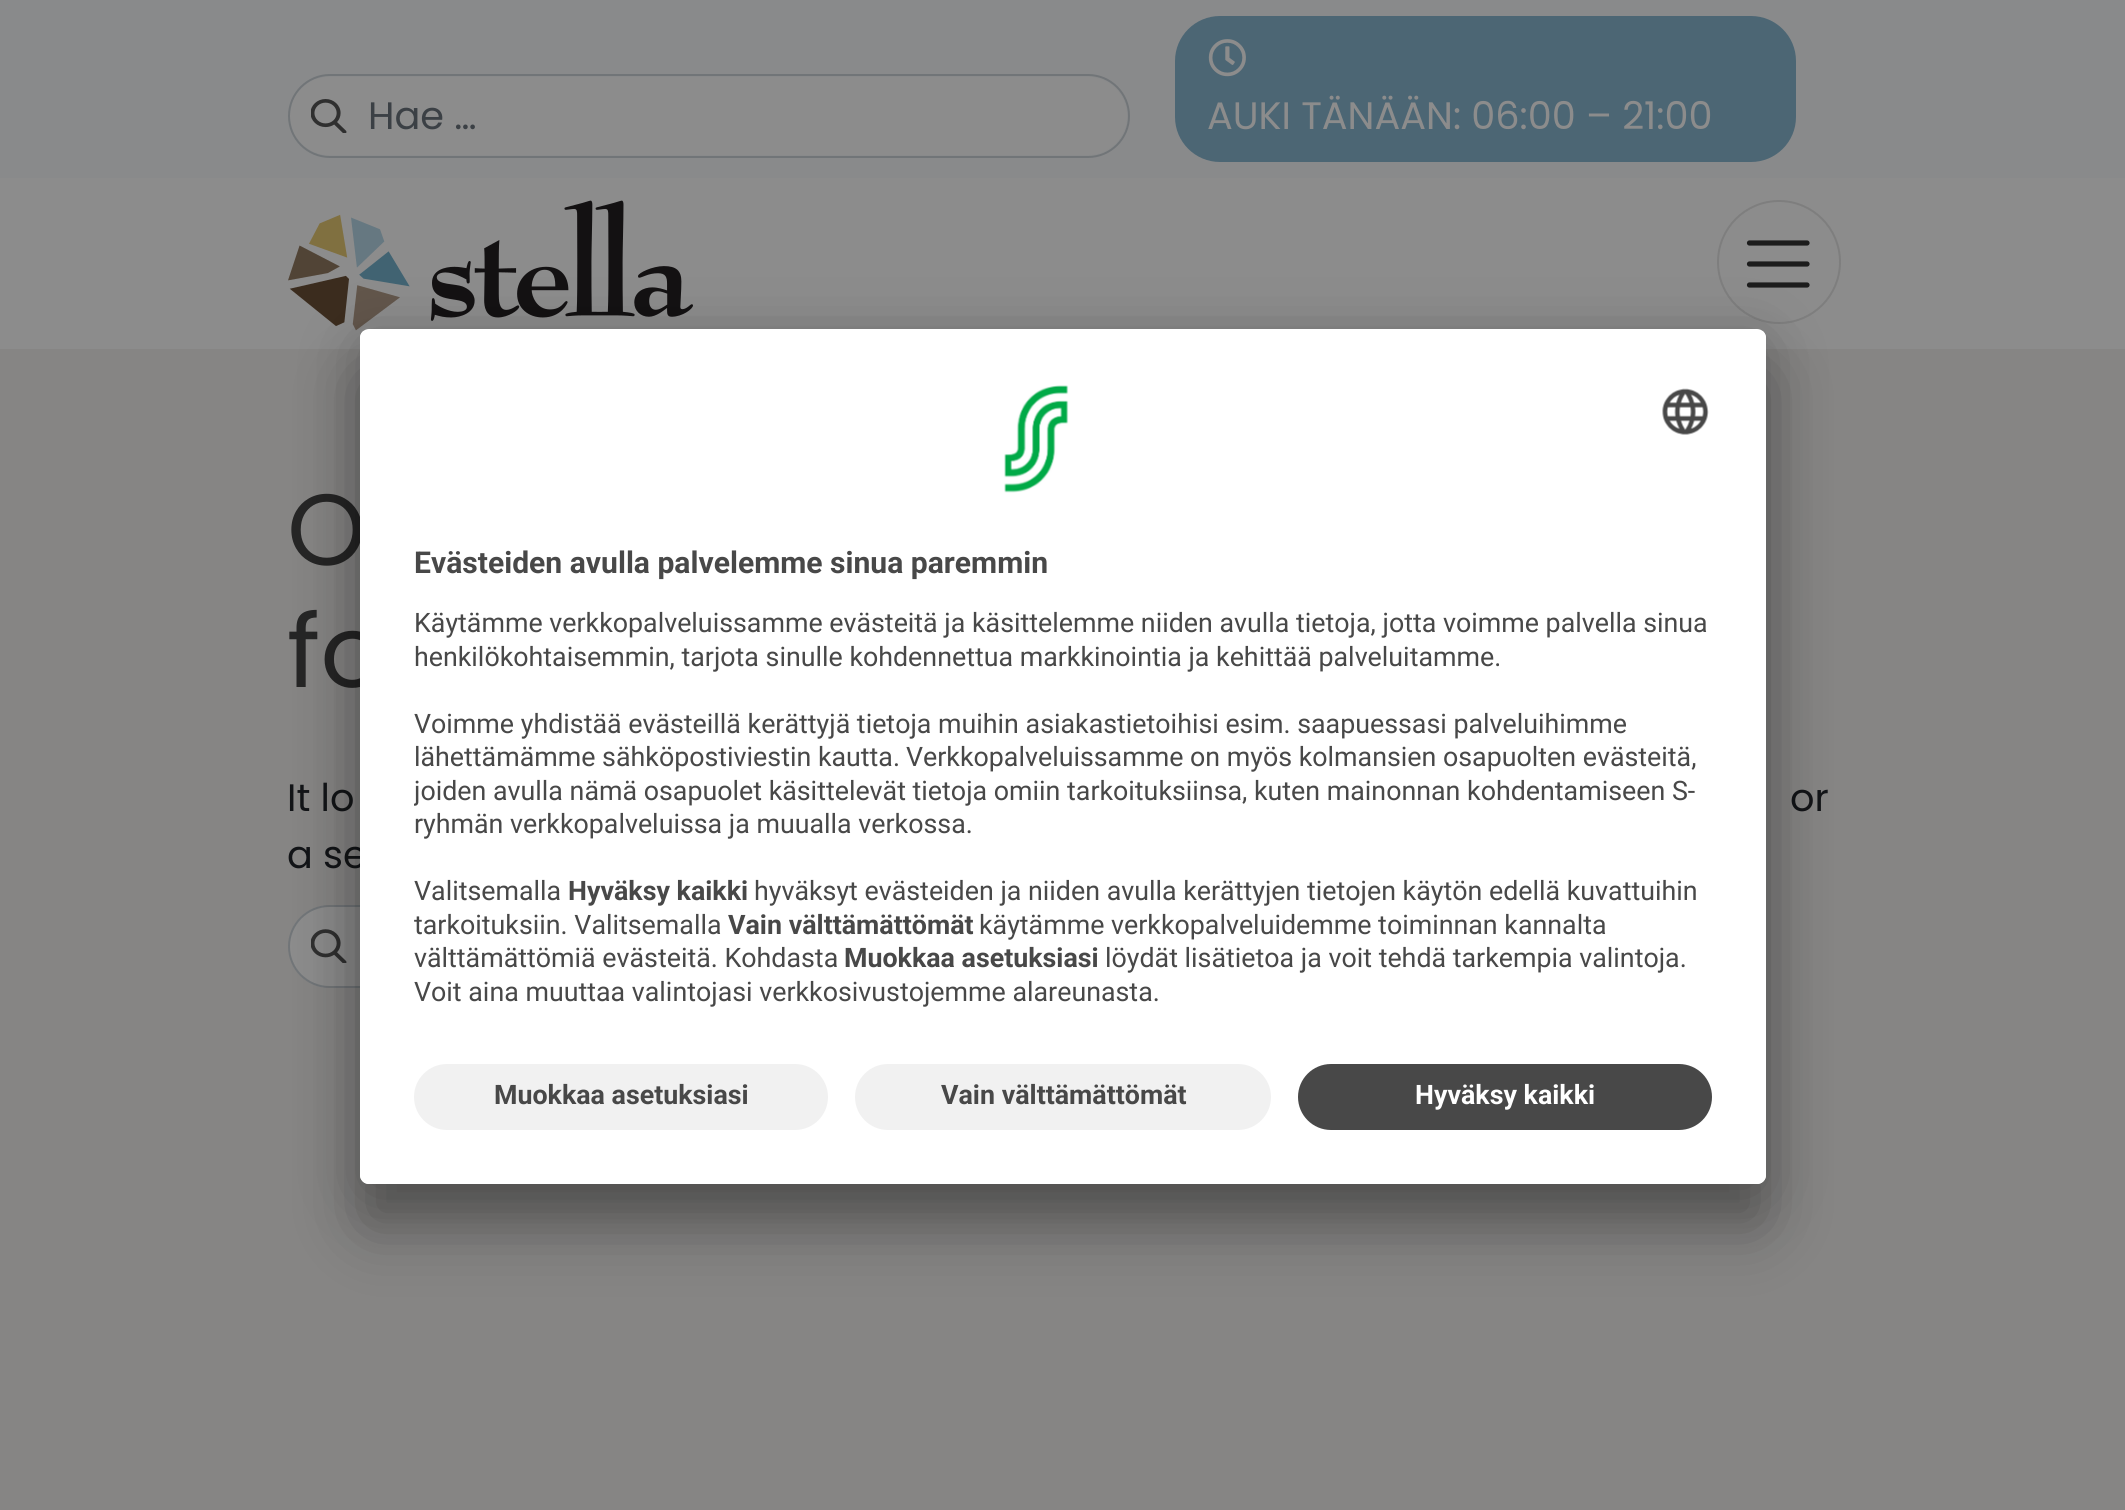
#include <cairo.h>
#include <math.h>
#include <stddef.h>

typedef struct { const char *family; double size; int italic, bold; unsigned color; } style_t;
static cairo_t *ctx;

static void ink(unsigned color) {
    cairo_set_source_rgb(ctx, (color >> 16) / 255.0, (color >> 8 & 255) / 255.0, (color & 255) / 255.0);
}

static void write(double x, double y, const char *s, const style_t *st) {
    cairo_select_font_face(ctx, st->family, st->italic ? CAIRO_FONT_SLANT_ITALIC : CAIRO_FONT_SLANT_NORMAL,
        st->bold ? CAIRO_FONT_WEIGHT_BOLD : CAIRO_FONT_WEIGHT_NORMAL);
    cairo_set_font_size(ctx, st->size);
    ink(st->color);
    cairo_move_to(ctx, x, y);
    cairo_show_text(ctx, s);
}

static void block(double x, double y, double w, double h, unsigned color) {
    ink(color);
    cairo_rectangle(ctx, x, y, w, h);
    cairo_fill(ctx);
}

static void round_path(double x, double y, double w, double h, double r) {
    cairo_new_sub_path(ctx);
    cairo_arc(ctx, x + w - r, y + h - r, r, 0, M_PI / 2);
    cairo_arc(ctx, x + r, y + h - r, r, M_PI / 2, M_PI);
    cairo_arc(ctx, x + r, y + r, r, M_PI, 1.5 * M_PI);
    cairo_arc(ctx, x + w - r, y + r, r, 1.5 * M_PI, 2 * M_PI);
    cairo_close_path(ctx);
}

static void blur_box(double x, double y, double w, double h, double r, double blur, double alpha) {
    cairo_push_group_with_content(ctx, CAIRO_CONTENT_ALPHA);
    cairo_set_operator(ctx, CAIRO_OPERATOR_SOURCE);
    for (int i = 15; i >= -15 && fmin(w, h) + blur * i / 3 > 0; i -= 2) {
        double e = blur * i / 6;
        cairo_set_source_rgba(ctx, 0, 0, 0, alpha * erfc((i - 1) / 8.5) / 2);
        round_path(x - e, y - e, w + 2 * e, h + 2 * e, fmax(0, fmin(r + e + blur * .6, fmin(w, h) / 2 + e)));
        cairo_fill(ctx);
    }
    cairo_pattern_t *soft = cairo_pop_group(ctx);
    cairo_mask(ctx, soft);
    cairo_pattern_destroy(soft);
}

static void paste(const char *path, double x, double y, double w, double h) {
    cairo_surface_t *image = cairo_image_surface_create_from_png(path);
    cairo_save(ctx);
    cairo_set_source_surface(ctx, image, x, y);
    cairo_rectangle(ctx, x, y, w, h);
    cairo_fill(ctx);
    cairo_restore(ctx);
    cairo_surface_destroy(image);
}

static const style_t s1 = {"Poppins", 38.25, 0, 0, 0x3b4045};
static const style_t s2 = {"Poppins", 38.25, 0, 0, 0x8c8c8c};
static const style_t s3 = {"Poppins", 101, 0, 0, 0x252525};
static const style_t s4 = {"Poppins", 38.25, 0, 0, 0x121417};
static const style_t s5 = {"Roboto", 30.1, 0, 1, 0x484848};
static const style_t s6 = {"Roboto", 26.8, 0, 0, 0x484848};
static const style_t s7 = {"Roboto", 26.8, 0, 1, 0x484848};
static const style_t s8 = {"Roboto", 26.8, 0, 1, 0xffffff};

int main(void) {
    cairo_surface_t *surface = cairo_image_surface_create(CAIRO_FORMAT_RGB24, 2125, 1510);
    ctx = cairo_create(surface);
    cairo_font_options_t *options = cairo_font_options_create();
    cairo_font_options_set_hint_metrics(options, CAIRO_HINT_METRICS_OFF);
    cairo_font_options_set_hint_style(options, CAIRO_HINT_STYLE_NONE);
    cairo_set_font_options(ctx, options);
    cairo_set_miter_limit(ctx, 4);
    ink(0x868584);
    cairo_paint(ctx);
    block(0, 178, 2125, 171, 0x8c8c8c);
    block(0, 0, 2125, 178, 0x898a8b);
    ink(0x8c8c8c);
    round_path(290, 77, 837, 78, 39);
    cairo_fill(ctx);
    round_path(289, 75, 840, 82, 41);
    ink(0x717578);
    cairo_stroke(ctx);
    paste("pic1.png", 311, 99, 36, 34);
    write(368, 129, "Hae …", &s1);
    ink(0x4c6674);
    round_path(1175, 16, 621, 146, 45);
    cairo_fill(ctx);
    paste("pic2.png", 1208, 39, 38, 38);
    write(1207, 129, "AUKI TÄNÄÄN: 06:00 – 21:00", &s2);
    paste("pic3.png", 288, 200, 405, 131);
    cairo_arc(ctx, 1779, 262, 61, 0, 2 * M_PI);
    ink(0x7e7e7e);
    cairo_stroke(ctx);
    cairo_new_path(ctx);
    cairo_move_to(ctx, 1749.5, 243);
    cairo_line_to(ctx, 1807, 243);
    cairo_move_to(ctx, 1749.5, 264);
    cairo_line_to(ctx, 1807, 264);
    cairo_move_to(ctx, 1749.5, 285);
    cairo_line_to(ctx, 1807, 285);
    ink(0x1c1c1c);
    cairo_set_line_width(ctx, 5.2);
    cairo_set_line_cap(ctx, CAIRO_LINE_CAP_ROUND);
    cairo_stroke(ctx);
    write(287, 565, "O", &s3);
    write(287, 687, "fo", &s3);
    write(287, 811, "It lo", &s4);
    write(1790, 811, "or", &s4);
    write(287, 868, "a se", &s4);
    ink(0x8c8c8c);
    round_path(289, 906, 842, 81, 40.5);
    cairo_fill_preserve(ctx);
    ink(0x717578);
    cairo_set_line_width(ctx, 2);
    cairo_set_line_cap(ctx, CAIRO_LINE_CAP_BUTT);
    cairo_stroke(ctx);
    paste("pic4.png", 311, 929, 36, 34);
    ink(0x000000);
    blur_box(360, 374, 1406, 855, 9, 31.5, 0.3);
    blur_box(360, 340, 1406, 855, 9, 29, 0.22);
    ink(0xffffff);
    round_path(360, 329, 1406, 855, 9);
    cairo_fill(ctx);
    cairo_save(ctx);
    round_path(360, 329, 1406, 855, 9);
    cairo_clip(ctx);
    cairo_new_path(ctx);
    cairo_move_to(ctx, 369, 329);
    cairo_line_to(ctx, 1757, 329);
    cairo_curve_to(ctx, 1762, 329, 1766, 333, 1766, 338);
    cairo_line_to(ctx, 1766, 1046);
    cairo_line_to(ctx, 360, 1046);
    cairo_line_to(ctx, 360, 338);
    cairo_curve_to(ctx, 360, 333, 364, 329, 369, 329);
    cairo_close_path(ctx);
    cairo_clip(ctx);
    block(360, 331, 1406, 715, 0xffffff);
    cairo_restore(ctx);
    paste("pic5.png", 1004, 385, 65, 108);
    paste("pic6.png", 1662, 388, 47, 47);
    write(414, 573, "Evästeiden avulla palvelemme sinua paremmin", &s5);
    write(414, 632, "Käytämme verkkopalveluissamme evästeitä ja käsittelemme niiden avulla tietoja, jotta voimme palvella sinua", &s6);
    write(414, 666, "henkilökohtaisemmin, tarjota sinulle kohdennettua markkinointia ja kehittää palveluitamme.", &s6);
    write(414, 733, "Voimme yhdistää evästeillä kerättyjä tietoja muihin asiakastietoihisi esim. saapuessasi palveluihimme", &s6);
    write(414, 766, "lähettämämme sähköpostiviestin kautta.", &s6);
    write(906, 766, "Verkkopalveluissamme on myös kolmansien osapuolten evästeitä,", &s6);
    cairo_save(ctx);
    cairo_rectangle(ctx, 414, 599, 1298, 420);
    cairo_clip(ctx);
    write(414, 800, "joiden avulla nämä osapuolet käsittelevät tietoja omiin tarkoituksiinsa, kuten mainonnan kohdentamiseen S-", &s6);
    cairo_restore(ctx);
    write(414, 833, "ryhmän verkkopalveluissa ja muualla verkossa.", &s6);
    write(414, 900, "Valitsemalla", &s6);
    write(568, 900, "Hyväksy kaikki", &s7);
    write(754, 900, "hyväksyt evästeiden ja niiden avulla kerättyjen tietojen käytön edellä kuvattuihin", &s6);
    write(414, 934, "tarkoituksiin. Valitsemalla", &s6);
    write(728, 934, "Vain välttämättömät", &s7);
    write(979, 934, "käytämme verkkopalveluidemme toiminnan kannalta", &s6);
    write(414, 967, "välttämättömiä evästeitä. Kohdasta", &s6);
    write(844, 967, "Muokkaa asetuksiasi", &s7);
    write(1105, 967, "löydät lisätietoa ja voit tehdä tarkempia valintoja.", &s6);
    write(414, 1001, "Voit aina muuttaa valintojasi verkkosivustojemme alareunasta.", &s6);
    ink(0xffffff);
    cairo_new_path(ctx);
    cairo_move_to(ctx, 360, 1046);
    cairo_line_to(ctx, 1766, 1046);
    cairo_line_to(ctx, 1766, 1175);
    cairo_curve_to(ctx, 1766, 1180, 1762, 1184, 1757, 1184);
    cairo_line_to(ctx, 369, 1184);
    cairo_curve_to(ctx, 364, 1184, 360, 1180, 360, 1175);
    cairo_close_path(ctx);
    cairo_fill(ctx);
    ink(0xf1f1f1);
    round_path(414, 1064, 414, 66, 33);
    cairo_fill(ctx);
    write(494, 1104, "Muokkaa asetuksiasi", &s7);
    ink(0xf1f1f1);
    round_path(855, 1064, 416, 66, 33);
    cairo_fill(ctx);
    write(941, 1104, "Vain välttämättömät", &s7);
    round_path(1298, 1064, 414, 66, 33);
    cairo_fill(ctx);
    write(1415, 1104, "Hyväksy kaikki", &s8);
    cairo_surface_write_to_png(surface, "screenshot.png");
    cairo_font_options_destroy(options);
    cairo_destroy(ctx);
    cairo_surface_destroy(surface);
    return 0;
}
